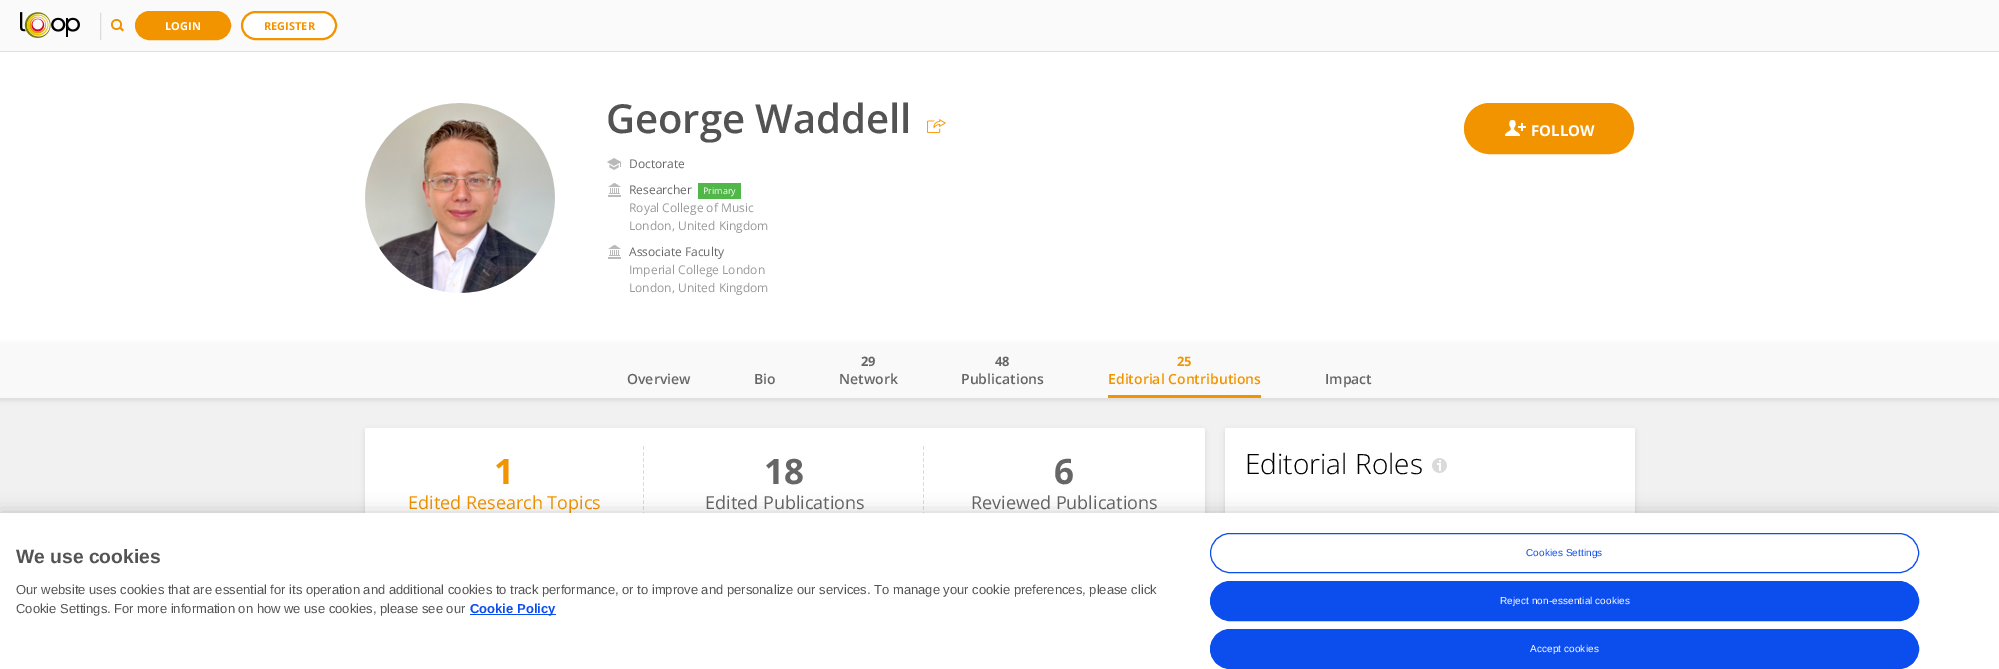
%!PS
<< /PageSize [1999 669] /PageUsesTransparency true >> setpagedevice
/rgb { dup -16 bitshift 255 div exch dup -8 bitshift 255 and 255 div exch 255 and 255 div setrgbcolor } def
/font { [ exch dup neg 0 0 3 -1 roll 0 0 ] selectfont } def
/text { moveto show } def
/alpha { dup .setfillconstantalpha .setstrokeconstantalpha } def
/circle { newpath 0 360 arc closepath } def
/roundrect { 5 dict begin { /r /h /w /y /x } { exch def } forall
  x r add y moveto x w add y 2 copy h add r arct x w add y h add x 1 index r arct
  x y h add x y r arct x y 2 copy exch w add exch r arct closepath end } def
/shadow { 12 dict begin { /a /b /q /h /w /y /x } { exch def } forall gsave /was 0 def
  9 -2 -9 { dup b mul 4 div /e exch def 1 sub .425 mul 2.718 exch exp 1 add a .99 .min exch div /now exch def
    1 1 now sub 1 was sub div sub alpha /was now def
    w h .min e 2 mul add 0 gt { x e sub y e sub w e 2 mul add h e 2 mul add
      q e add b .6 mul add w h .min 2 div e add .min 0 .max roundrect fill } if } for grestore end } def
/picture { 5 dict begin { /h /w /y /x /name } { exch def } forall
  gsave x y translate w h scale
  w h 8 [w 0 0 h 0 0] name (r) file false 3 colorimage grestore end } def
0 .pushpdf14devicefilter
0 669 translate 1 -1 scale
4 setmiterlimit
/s1 { /OpenSans-Bold 11 font 16#FFFFFF rgb } def
/s2 { /OpenSans-Bold 11 font 16#F29400 rgb } def
/s3 { /OpenSans-SemiBold 40 font 16#535353 rgb } def
/s4 { /OpenSans-Regular 12 font 16#666666 rgb } def
/s5 { /OpenSans-Regular 9 font 16#FFFFFF rgb } def
/s6 { /OpenSans-Regular 12 font 16#999999 rgb } def
/s7 { /OpenSans-Bold 15 font 16#FFFFFF rgb } def
/s8 { /OpenSans-SemiBold 14 font 16#666666 rgb } def
/s9 { /OpenSans-Bold 13 font 16#666666 rgb } def
/s10 { /OpenSans-Bold 13 font 16#F29400 rgb } def
/s11 { /OpenSans-SemiBold 14 font 16#F29400 rgb } def
/s12 { /OpenSans-Bold 35 font 16#F29400 rgb } def
/s13 { /OpenSans-Regular 18 font 16#F29400 rgb } def
/s14 { /OpenSans-Bold 35 font 16#666666 rgb } def
/s15 { /OpenSans-Regular 18 font 16#666666 rgb } def
/s16 { /OpenSans-Light 28 font 16#000000 rgb } def
/s17 { /LiberationSans-Bold 19.25 font 16#535353 rgb } def
/s18 { /LiberationSans-Regular 13 font 16#535353 rgb } def
/s19 { /LiberationSans-Bold 13 font 16#0C4DED rgb } def
16#F1F1F1 rgb
0 0 1999 669 rectfill
16#FAFAFA rgb
0 0 1999 51 rectfill
16#E0E0E0 rgb
0 51 1999 1 rectfill
(pic1.raw) 20 12 60 26 picture
16#DCDCDC rgb
101 40 moveto 100.5 39 lineto 100.5 14 lineto 101 13 lineto stroke
16#F29400 rgb
116.5 24.5 5.5 circle fill
16#F9F9F9 rgb
116.5 24.5 3.5 circle fill
16#F29400 rgb
120.5 26.5 moveto 124 30 lineto 122.5 31.5 lineto 119 28 lineto closepath fill
136 12 94 27 13.5 roundrect gsave fill grestore
2 setlinewidth
stroke
s1
(LOGIN) 165 30 text
242 12 94 27 13.5 roundrect gsave fill grestore
16#F29400 rgb
stroke
(REGISTER) 264 30 text
16#FFFFFF rgb
0 52 1999 291 rectfill
(pic2.raw) 365 103 190 190 picture
s3
(George Waddell) 606 133 text
(pic3.raw) 927 119 19 14 picture
(pic4.raw) 607 158 14 12 picture
s4
(Doctorate) 629 168 text
(pic5.raw) 608 183 13 14 picture
(Researcher) 629 194 text
16#51B749 rgb
698 183 43 16 rectfill
s5
(Primary) 703 194 text
s6
(Royal College of Music) 629 212 text
(London, United Kingdom) 629 230 text
(pic5.raw) 608 245 13 14 picture
s4
(Associate Faculty) 629 256 text
s6
(Imperial College London) 629 274 text
(London, United Kingdom) 629 292 text
16#F29400 rgb
1465.5 104.5 167 48 24 roundrect gsave fill grestore
3 setlinewidth
stroke
(pic6.raw) 1505 120 21 16 picture
s7
(FOLLOW) 1531 136 text
16#000000 rgb
0 345 1999 55 0 2.5 0.1 shadow
16#F9F9F9 rgb
0 343 1999 55 rectfill
s8
(Overview) 627 384 text
(Bio) 754 384 text
s9
(29) 861 366 text
s8
(Network) 839 384 text
s9
(48) 995 366 text
s8
(Publications) 961 384 text
16#F29400 rgb
1108 395 153 3 rectfill
s10
(25) 1177 366 text
s11
(Editorial Contributions) 1108 384 text
s8
(Impact) 1325 384 text
16#000000 rgb
365 430 840 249 2 2.5 0.1 shadow
16#FFFFFF rgb
365 428 840 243 2 roundrect fill
(pic7.raw) 643 446 1 67 picture
s12
(1) 494 484 text
s13
(Edited Research Topics) 408 509 text
(pic7.raw) 923 446 1 67 picture
s14
(18) 764 484 text
s15
(Edited Publications) 705 509 text
s14
(6) 1054 484 text
s15
(Reviewed Publications) 971 509 text
16#000000 rgb
1225 430 410 206 2 2.5 0.1 shadow
16#FFFFFF rgb
1225 428 410 206 2 roundrect fill
s16
(Editorial Roles) 1245 474 text
(pic8.raw) 1432 458 15 15 picture
0 513 1999 156 0 9 0.2 shadow
16#FFFFFF rgb
0 513 1999 156 rectfill
s17
(We use cookies) 16 563 text
s18
(Our website uses cookies that are essential for its operation and additional cookies to track performance, or to improve and personalize our services. To manage your cookie preferences, please click) 16 594 text
(Cookie Settings. For more information on how we use cookies, please see our) 16 613 text
16#0C4DED rgb
470 614 86 1 rectfill
s19
(Cookie Policy) 470 613 text
1 setlinewidth
1210.5 533.5 708 39 19.5 roundrect stroke
/LiberationSans-Regular 10 font
1526 556 moveto 0.1 0 (Cookies Settings) ashow
1210.5 581.5 708 39 19.5 roundrect gsave fill grestore
stroke
16#FFFFFF rgb
1500 604 moveto 0.1 0 (Reject non-essential cookies) ashow
16#0C4DED rgb
1210.5 629.5 708 39 19.5 roundrect gsave fill grestore
stroke
16#FFFFFF rgb
1530 652 moveto 0.1 0 (Accept cookies) ashow
.poppdf14devicefilter showpage
